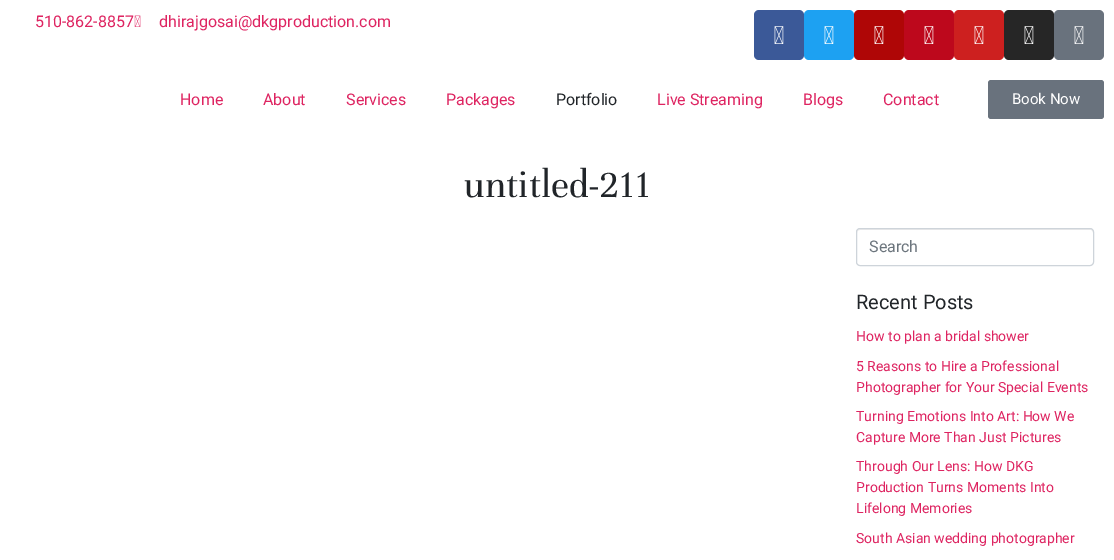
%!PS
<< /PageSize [1114 560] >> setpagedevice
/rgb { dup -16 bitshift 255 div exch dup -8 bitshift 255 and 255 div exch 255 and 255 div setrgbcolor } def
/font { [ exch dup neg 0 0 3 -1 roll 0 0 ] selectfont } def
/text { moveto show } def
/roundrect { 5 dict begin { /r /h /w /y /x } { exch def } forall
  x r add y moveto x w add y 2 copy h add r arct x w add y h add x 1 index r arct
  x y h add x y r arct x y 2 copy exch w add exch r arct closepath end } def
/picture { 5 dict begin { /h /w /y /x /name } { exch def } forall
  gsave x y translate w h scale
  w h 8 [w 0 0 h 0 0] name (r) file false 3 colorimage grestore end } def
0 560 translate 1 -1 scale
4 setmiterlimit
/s1 { /Roboto-Regular 16 font 16#DE2461 rgb } def
/s2 { /Roboto-Regular 16 font 16#212529 rgb } def
/s3 { /Roboto-Regular 15 font 16#FFFFFF rgb } def
/s4 { /Unna-Regular 40 font 16#212529 rgb } def
/s5 { /Roboto-Regular 16 font 16#6C757D rgb } def
/s6 { /Roboto-Regular 20 font 16#212529 rgb } def
/s7 { /Roboto-Regular 14 font 16#DE2461 rgb } def
16#FFFFFF rgb
0 0 1114 560 rectfill
s1
(510-862-8857) 35 27 text
(pic1.raw) 134 15 7 12 picture
(dhirajgosai@dkgproduction.com) 159 27 text
16#3B5998 rgb
754 10 50 50 5 roundrect fill
(pic2.raw) 774 26 10 18 picture
16#1DA1F2 rgb
804 10 50 50 5 roundrect fill
(pic3.raw) 824 26 10 18 picture
16#AF0606 rgb
854 10 50 50 5 roundrect fill
(pic4.raw) 874 26 10 18 picture
16#BD081C rgb
904 10 50 50 5 roundrect fill
(pic5.raw) 924 26 10 18 picture
16#CD201F rgb
954 10 50 50 5 roundrect fill
(pic6.raw) 974 26 10 18 picture
16#262626 rgb
1004 10 50 50 5 roundrect fill
(pic7.raw) 1024 26 10 18 picture
16#69727D rgb
1054 10 50 50 5 roundrect fill
(pic8.raw) 1074 26 10 18 picture
s1
(Home) 180 105 text
(About) 263 105 text
(Services) 346 105 text
(Packages) 446 105 text
s2
(Portfolio) 556 105 text
s1
(Live Streaming) 657 105 text
(Blogs) 803 105 text
(Contact) 883 105 text
16#69727D rgb
988 80 116 39 3 roundrect fill
s3
(Book Now) 1012 104 text
s4
(untitled-211) 464 197 text
16#ECECEC rgb
860 230 moveto 1091 230 lineto 1093 231 lineto 1093 233 lineto 1093 231 1092 229 1090 229 curveto 860 229 lineto 858 229 857 231 857 233 curveto 857 231 858 230 860 230 curveto closepath fill
16#CED4DA rgb
856.5 228.5 237 37 3.5 roundrect stroke
s5
(Search) 869 252 text
s6
(Recent Posts) 856 309 text
s7
(How to plan a bridal shower) 856 341 text
(5 Reasons to Hire a Professional) 856 371 text
(Photographer for Your Special Events) 856 392 text
(Turning Emotions Into Art: How We) 856 421 text
(Capture More Than Just Pictures) 856 442 text
(Through Our Lens: How DKG) 856 471 text
(Production Turns Moments Into) 856 492 text
(Lifelong Memories) 856 513 text
(South Asian wedding photographer) 856 543 text
showpage
